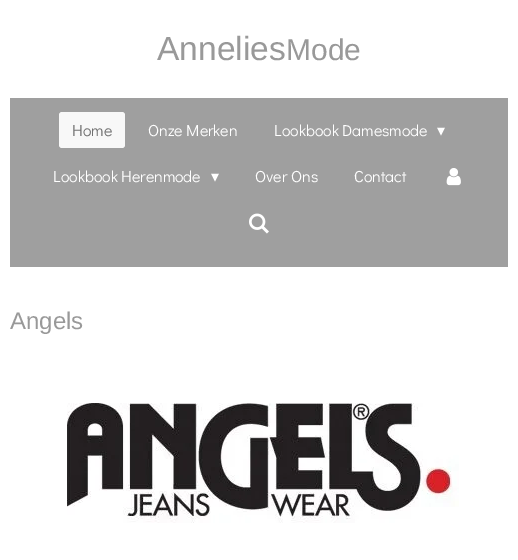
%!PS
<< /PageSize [518 560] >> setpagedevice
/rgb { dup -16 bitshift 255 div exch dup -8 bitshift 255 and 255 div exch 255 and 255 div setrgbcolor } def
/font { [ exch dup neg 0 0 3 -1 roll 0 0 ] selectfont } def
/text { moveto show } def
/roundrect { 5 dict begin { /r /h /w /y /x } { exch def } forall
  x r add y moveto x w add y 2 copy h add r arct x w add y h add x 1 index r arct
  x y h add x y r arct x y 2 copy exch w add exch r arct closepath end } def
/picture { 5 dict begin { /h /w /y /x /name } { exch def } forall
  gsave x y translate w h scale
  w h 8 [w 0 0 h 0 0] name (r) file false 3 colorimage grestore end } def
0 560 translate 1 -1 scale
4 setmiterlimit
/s1 { /Arimo-Regular 33.5 font 16#999999 rgb } def
/s2 { /Arimo-Regular 30 font 16#999999 rgb } def
/s3 { /DidactGothic-Regular 16 font 16#707070 rgb } def
/s4 { /DidactGothic-Regular 16 font 16#FFFFFF rgb } def
/s5 { /DejaVuSans-Regular 16 font 16#FFFFFF rgb } def
/s6 { /Arimo-Regular 24 font 16#999999 rgb } def
16#FFFFFF rgb
0 0 518 560 rectfill
s1
(Annelies) 157 60 text
s2
(Mode) 286 60 text
16#9F9F9F rgb
10 98 498 169 rectfill
16#F8F8F8 rgb
59 112 66 36 3 roundrect fill
s3
(Home) 72 136 text
s4
(Onze Merken) 148 136 text
(Lookbook Damesmode) 274 136 text
s5
(▾) 437 136 text
s4
(Lookbook Herenmode) 53 182 text
s5
(▾) 211 182 text
s4
(Over Ons) 255 182 text
(Contact) 354 182 text
(pic1.raw) 446 168 15 18 picture
(pic2.raw) 249 213 20 21 picture
s6
(Angels) 10 329 text
(pic3.raw) 67 403 392 120 picture
showpage
